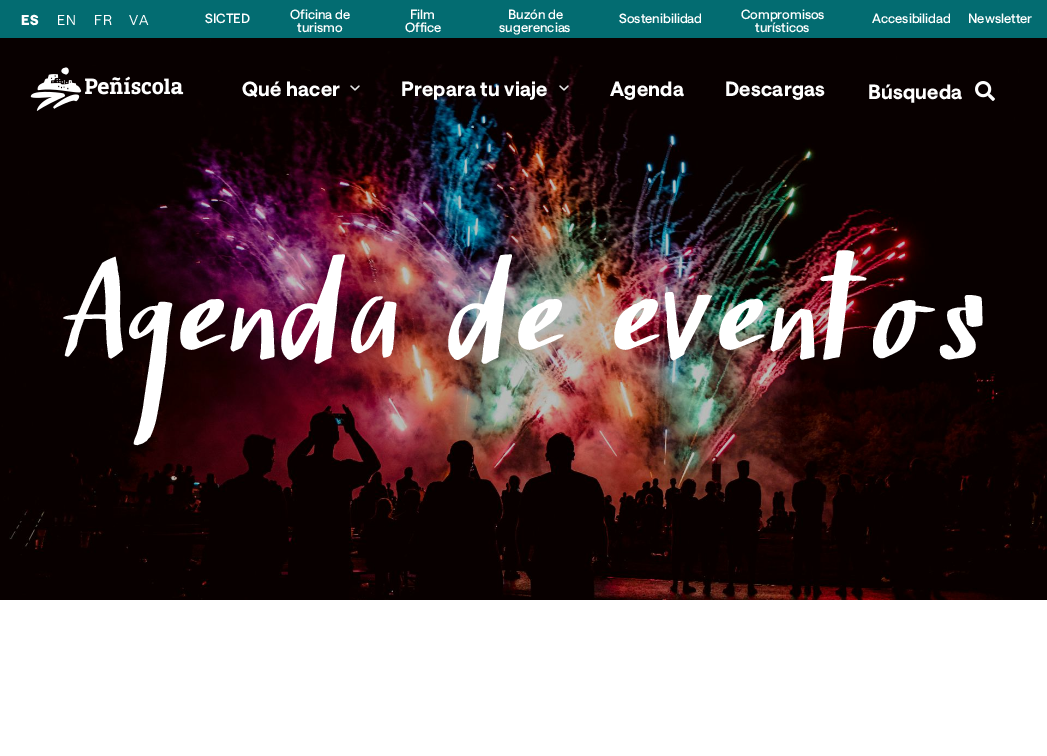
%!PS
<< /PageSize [1047 756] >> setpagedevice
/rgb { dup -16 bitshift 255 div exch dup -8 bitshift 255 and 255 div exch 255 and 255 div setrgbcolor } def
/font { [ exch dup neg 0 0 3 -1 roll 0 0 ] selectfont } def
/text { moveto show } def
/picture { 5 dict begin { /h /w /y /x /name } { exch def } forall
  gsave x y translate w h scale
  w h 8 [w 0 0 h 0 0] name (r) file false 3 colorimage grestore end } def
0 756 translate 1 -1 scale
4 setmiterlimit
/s1 { /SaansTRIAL-Medium 13 font 16#FFFFFF rgb } def
/s2 { /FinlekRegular-Regular 150 font 16#FFFFFF rgb } def
16#FFFFFF rgb
0 0 1047 756 rectfill
16#036C71 rgb
0 0 1047 38 rectfill
/SaansTRIAL-Black 14 font
16#FFFFFF rgb
21 25 moveto 1 0 (ES) ashow
/SaansTRIAL-Regular 14 font
57 25 moveto 1 0 (EN) ashow
94 25 moveto 1 0 (FR) ashow
129 25 moveto 1 0 (VA) ashow
s1
(SICTED) 205 23 text
(Oficina de) 290 19 text
(turismo) 297 32 text
(Film) 410 19 text
(Office) 405 32 text
(Buzón de) 508 19 text
(sugerencias) 499 32 text
(Sostenibilidad) 619 23 text
(Compromisos) 741 19 text
(turísticos) 755 32 text
(Accesibilidad) 872 23 text
(Newsletter) 968 23 text
(pic5.raw) 0 38 1047 562 picture
(pic1.raw) 30 67 154 44 picture
/SaansTRIAL-Bold 20 font
242 96 moveto 0.25 0 (Qué hacer) ashow
(pic2.raw) 350 85 10 6 picture
401 96 moveto 0.25 0 (Prepara tu viaje) ashow
(pic3.raw) 559 85 10 6 picture
610 96 moveto 0.25 0 (Agenda) ashow
725 96 moveto 0.25 0 (Descargas) ashow
868 99 moveto 0.25 0 (Búsqueda) ashow
(pic4.raw) 975 81 20 20 picture
s2
(Agenda de eventos) 60 360 text
showpage
